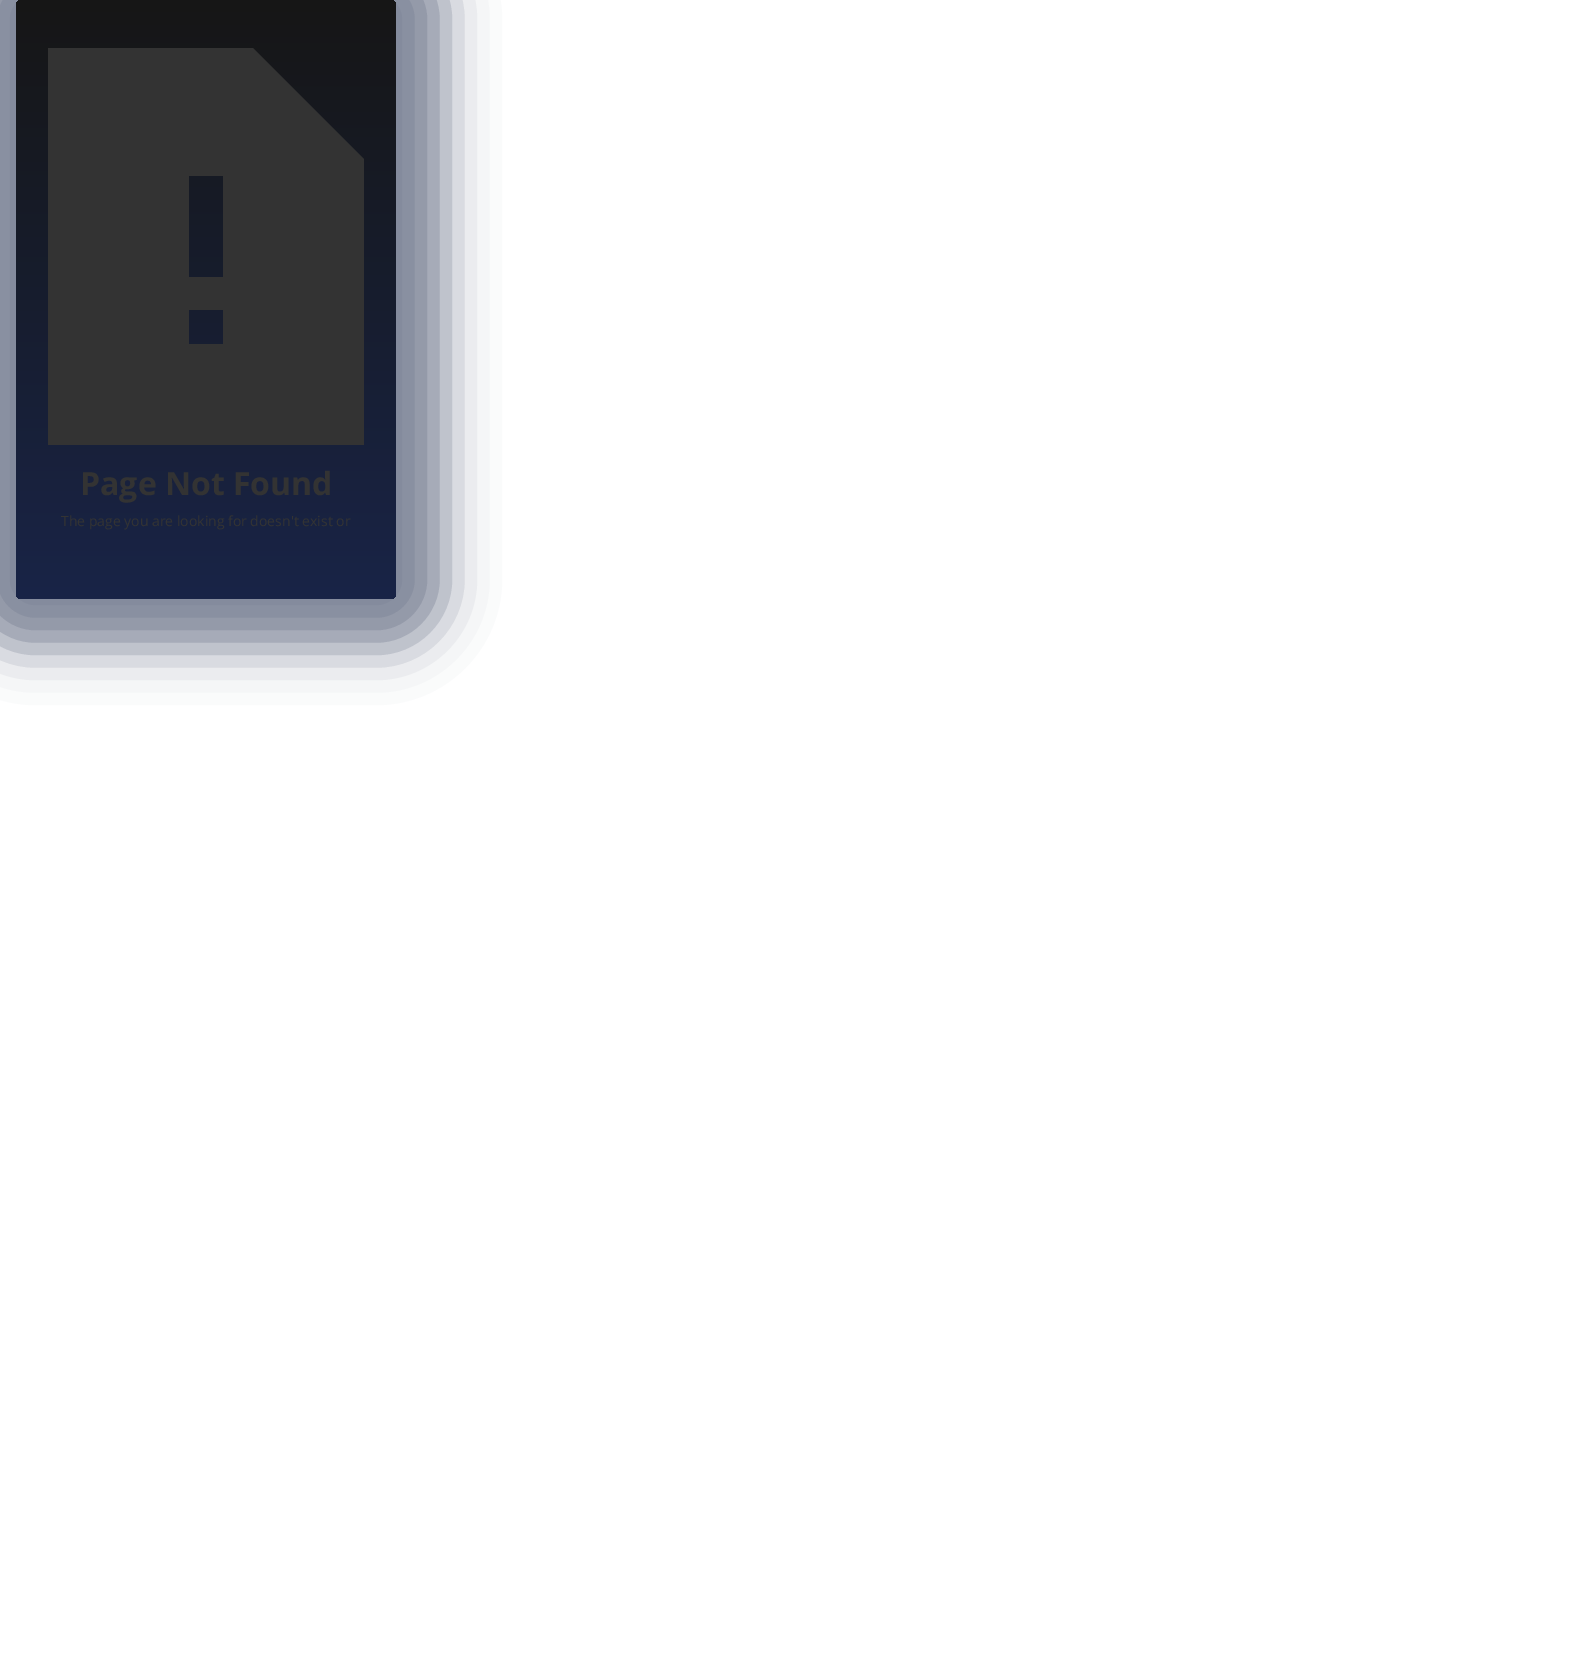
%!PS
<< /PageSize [1569 1673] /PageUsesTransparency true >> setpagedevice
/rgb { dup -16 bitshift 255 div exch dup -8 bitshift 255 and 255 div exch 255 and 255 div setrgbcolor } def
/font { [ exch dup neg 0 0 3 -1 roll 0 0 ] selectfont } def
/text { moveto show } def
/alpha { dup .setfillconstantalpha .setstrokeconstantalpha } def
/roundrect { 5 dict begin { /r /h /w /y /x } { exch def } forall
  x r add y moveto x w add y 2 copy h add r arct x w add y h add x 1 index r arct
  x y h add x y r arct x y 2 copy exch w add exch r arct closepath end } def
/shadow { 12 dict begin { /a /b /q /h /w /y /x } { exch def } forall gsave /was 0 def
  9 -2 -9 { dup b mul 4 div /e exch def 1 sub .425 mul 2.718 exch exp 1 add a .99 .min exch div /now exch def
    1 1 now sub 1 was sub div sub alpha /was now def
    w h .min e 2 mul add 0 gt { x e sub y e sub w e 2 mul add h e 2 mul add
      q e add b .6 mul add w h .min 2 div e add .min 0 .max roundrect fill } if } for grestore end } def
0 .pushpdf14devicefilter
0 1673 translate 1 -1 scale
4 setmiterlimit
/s1 { /OpenSans-Bold 32 font 16#333333 rgb } def
/s2 { /OpenSans-Regular 14 font 16#333333 rgb } def
16#FFFFFF rgb
0 0 1569 1673 rectfill
16#192447 rgb
-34 -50 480 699 55 25 0.55 shadow
gsave 16 0 380 599 5 roundrect clip newpath
<< /ShadingType 2 /ColorSpace /DeviceRGB /Coords [206 0 206 599] /Extend [true true] /Function << /FunctionType 2 /Domain [0 1] /C0 [0.086 0.086 0.086] /C1 [0.098 0.141 0.278] /N 1 >> >> shfill grestore
16#333333 rgb
48 48 moveto 253 48 lineto 364 159 lineto 364 445 lineto 48 445 lineto closepath 189 176 moveto 223 176 lineto 223 277 lineto 189 277 lineto closepath 189 310 moveto 223 310 lineto 223 344 lineto 189 344 lineto closepath eofill
s1
(Page Not Found) 80 495 text
s2
(The page you are looking for doesn't exist or) 61 526 text
.poppdf14devicefilter showpage
